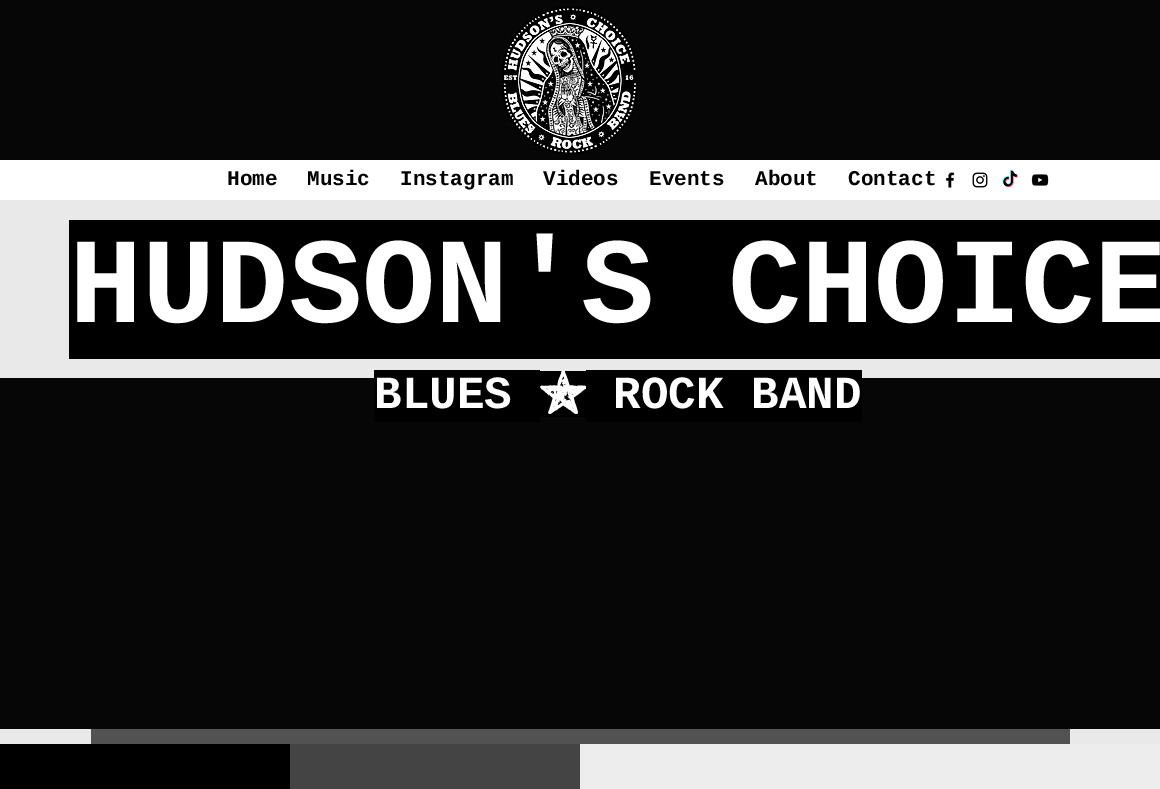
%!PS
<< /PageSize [1160 789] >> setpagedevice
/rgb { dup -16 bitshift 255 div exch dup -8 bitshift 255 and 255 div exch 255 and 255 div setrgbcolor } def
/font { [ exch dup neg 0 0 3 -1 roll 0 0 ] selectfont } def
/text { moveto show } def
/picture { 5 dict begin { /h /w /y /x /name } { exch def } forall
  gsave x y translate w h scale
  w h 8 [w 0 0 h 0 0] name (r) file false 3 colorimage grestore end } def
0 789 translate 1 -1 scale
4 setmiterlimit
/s1 { /LiberationMono-Bold 21 font 16#000000 rgb } def
/s2 { /LiberationMono-Bold 122 font 16#FFFFFF rgb } def
/s3 { /LiberationMono-Bold 46 font 16#FFFFFF rgb } def
/s4 { /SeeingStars-Bold 46 font 16#FFFFFF rgb } def
16#E9E9E9 rgb
0 0 1160 789 rectfill
16#060606 rgb
0 0 1160 160 rectfill
(pic1.raw) 502 6 136 149 picture
16#FFFFFF rgb
0 160 1160 40 rectfill
s1
(Home) 227 185 text
(Music) 307 185 text
(Instagram) 400 185 text
(Videos) 543 185 text
(Events) 649 185 text
(About) 755 185 text
(Contact) 848 185 text
(pic2.raw) 946 172 9 16 picture
(pic3.raw) 972 172 16 16 picture
(pic4.raw) 1002 170 16 18 picture
(pic5.raw) 1031 174 18 12 picture
69 220 1091 139 rectfill
s2
(HUDSON'S CHOICE) 69 322 text
16#060606 rgb
0 378 1160 351 rectfill
16#000000 rgb
374 370 166 52 rectfill
s3
(BLUES) 374 408 text
16#000000 rgb
540 371 46 46 rectfill
s4
(f) 540 408 text
16#000000 rgb
586 370 276 52 rectfill
s3
(ROCK BAND) 613 408 text
16#000000 rgb
0 744 290 45 rectfill
16#444444 rgb
290 744 290 45 rectfill
16#EDEDED rgb
580 744 580 45 rectfill
16#525252 rgb
91 729 979 15 rectfill
showpage
